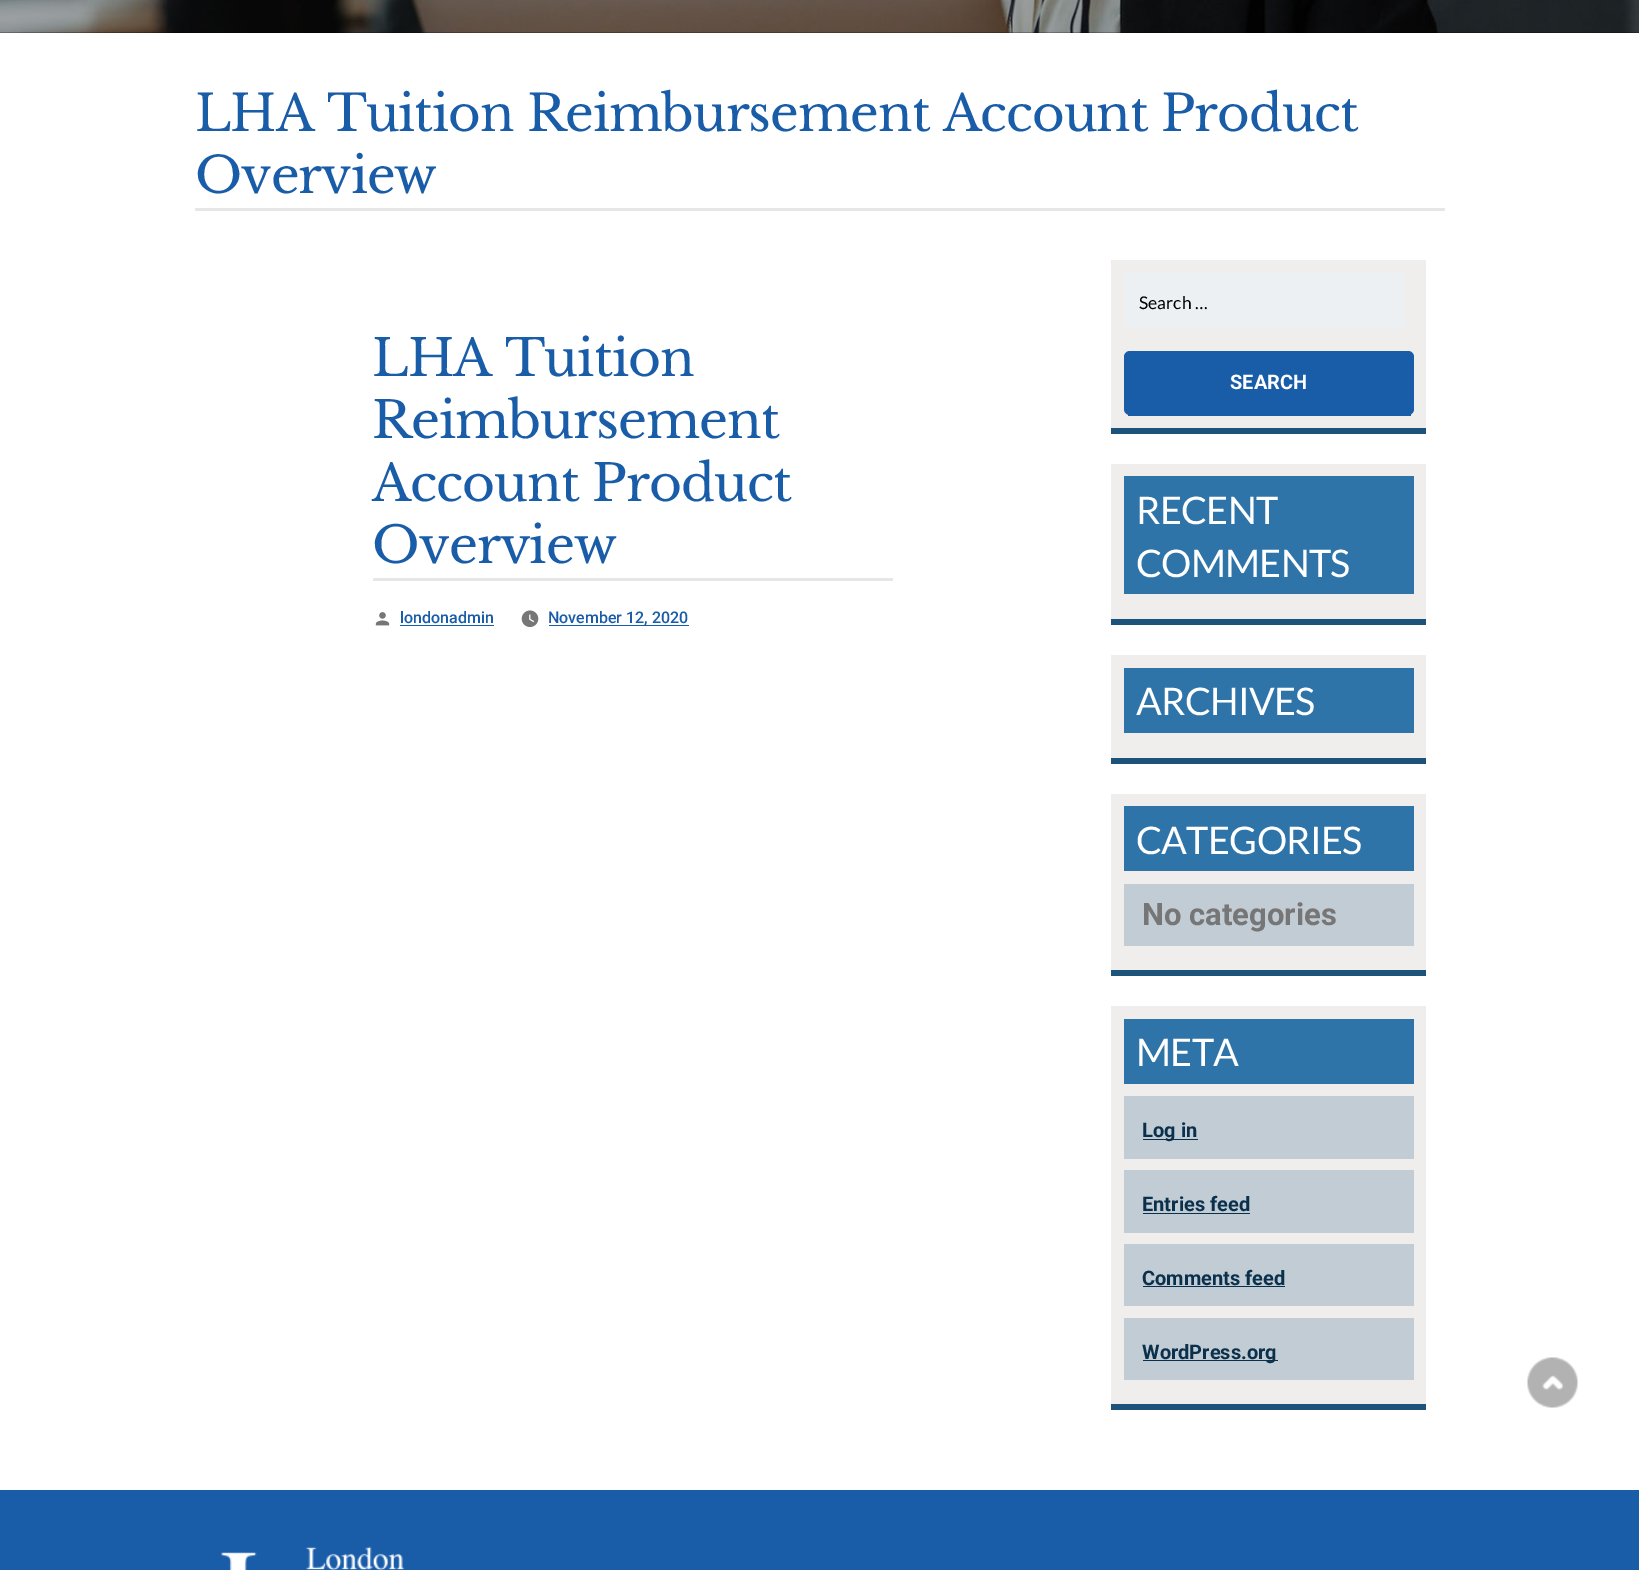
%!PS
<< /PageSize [1639 1570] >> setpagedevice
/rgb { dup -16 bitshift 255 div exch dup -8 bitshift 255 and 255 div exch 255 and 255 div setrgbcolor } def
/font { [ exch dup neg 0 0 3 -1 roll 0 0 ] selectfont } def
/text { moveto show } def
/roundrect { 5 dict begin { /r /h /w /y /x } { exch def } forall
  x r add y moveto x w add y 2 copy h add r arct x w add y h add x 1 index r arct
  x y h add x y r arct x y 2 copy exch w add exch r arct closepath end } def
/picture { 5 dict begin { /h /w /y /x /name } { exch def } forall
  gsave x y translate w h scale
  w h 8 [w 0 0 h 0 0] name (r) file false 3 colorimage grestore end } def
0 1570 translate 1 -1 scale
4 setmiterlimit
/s1 { /Roboto-Medium 16 font 16#195CA8 rgb } def
/s2 { /Lato-Regular 17.5 font 16#000000 rgb } def
/s3 { /Roboto-Bold 20 font 16#FFFFFF rgb } def
/s4 { /Roboto-Bold 31 font 16#767676 rgb } def
/s5 { /Roboto-Bold 20 font 16#0B304C rgb } def
16#FFFFFF rgb
0 0 1639 1570 rectfill
(pic1.raw) 0 0 1639 33 picture
16#E6E6E6 rgb
195 208 1250 3 rectfill
/LibreBaskerville-Regular 50 font
16#195CA8 rgb
195 131 moveto -1 0 (LHA Tuition Reimbursement Account Product) ashow
195 193 moveto -1 0 (Overview) ashow
16#E6E6E6 rgb
373 578 520 3 rectfill
/LibreBaskerville-Regular 50.5 font
16#195CA8 rgb
372 376 moveto -1 0 (LHA Tuition) ashow
372 438 moveto -1 0 (Reimbursement) ashow
372 501 moveto -1 0 (Account Product) ashow
372 563 moveto -1 0 (Overview) ashow
(pic2.raw) 375 612 15 14 picture
s1
(londonadmin) 400 623 text
400 625 94 1 rectfill
(pic3.raw) 521 610 18 18 picture
549 625 140 1 rectfill
(November 12, 2020) 548 623 text
16#F0EDED rgb
1111 260 315 168 rectfill
16#1D527B rgb
1111 428 315 6 rectfill
16#ECF0F3 rgb
1124 273 281 56 rectfill
s2
(Search …) 1139 309 text
16#195CA8 rgb
1124 351 290 64 6 roundrect fill
1128 414 283 2 rectfill
s3
(SEARCH) 1230 389 text
16#F0EDED rgb
1111 464 315 155 rectfill
16#1D527B rgb
1111 619 315 6 rectfill
16#2E74A9 rgb
1124 476 290 118 rectfill
/Lato-Regular 38 font
16#FFFFFF rgb
1136 524 moveto -0.75 0 (RECENT) ashow
1136 577 moveto -0.75 0 (COMMENTS) ashow
16#F0EDED rgb
1111 655 315 103 rectfill
16#1D527B rgb
1111 758 315 6 rectfill
16#2E74A9 rgb
1124 668 290 65 rectfill
16#FFFFFF rgb
1136 715 moveto -0.75 0 (ARCHIVES) ashow
16#F0EDED rgb
1111 794 315 176 rectfill
16#1D527B rgb
1111 970 315 6 rectfill
16#2E74A9 rgb
1124 806 290 65 rectfill
16#FFFFFF rgb
1136 854 moveto -0.75 0 (CATEGORIES) ashow
16#C2CCD4 rgb
1124 884 290 62 rectfill
s4
(No categories) 1142 925 text
16#F0EDED rgb
1111 1006 315 398 rectfill
16#1D527B rgb
1111 1404 315 6 rectfill
16#2E74A9 rgb
1124 1019 290 65 rectfill
/Lato-Regular 38 font
16#FFFFFF rgb
1136 1066 moveto -0.75 0 (META) ashow
16#C2CCD4 rgb
1124 1096 290 63 rectfill
16#0B304C rgb
1143 1139 55 1 rectfill
s5
(Log in) 1142 1137 text
16#C2CCD4 rgb
1124 1170 290 63 rectfill
s5
(Entries feed) 1142 1211 text
1143 1213 107 1 rectfill
16#C2CCD4 rgb
1124 1244 290 62 rectfill
s5
(Comments feed) 1142 1285 text
1143 1286 142 1 rectfill
16#C2CCD4 rgb
1124 1318 290 62 rectfill
16#0B304C rgb
1143 1360 135 1 rectfill
(WordPress.org) 1142 1359 text
(pic4.raw) 1527 1357 51 51 picture
16#195CA8 rgb
0 1490 1639 80 rectfill
(pic5.raw) 221 1546 184 24 picture
showpage
